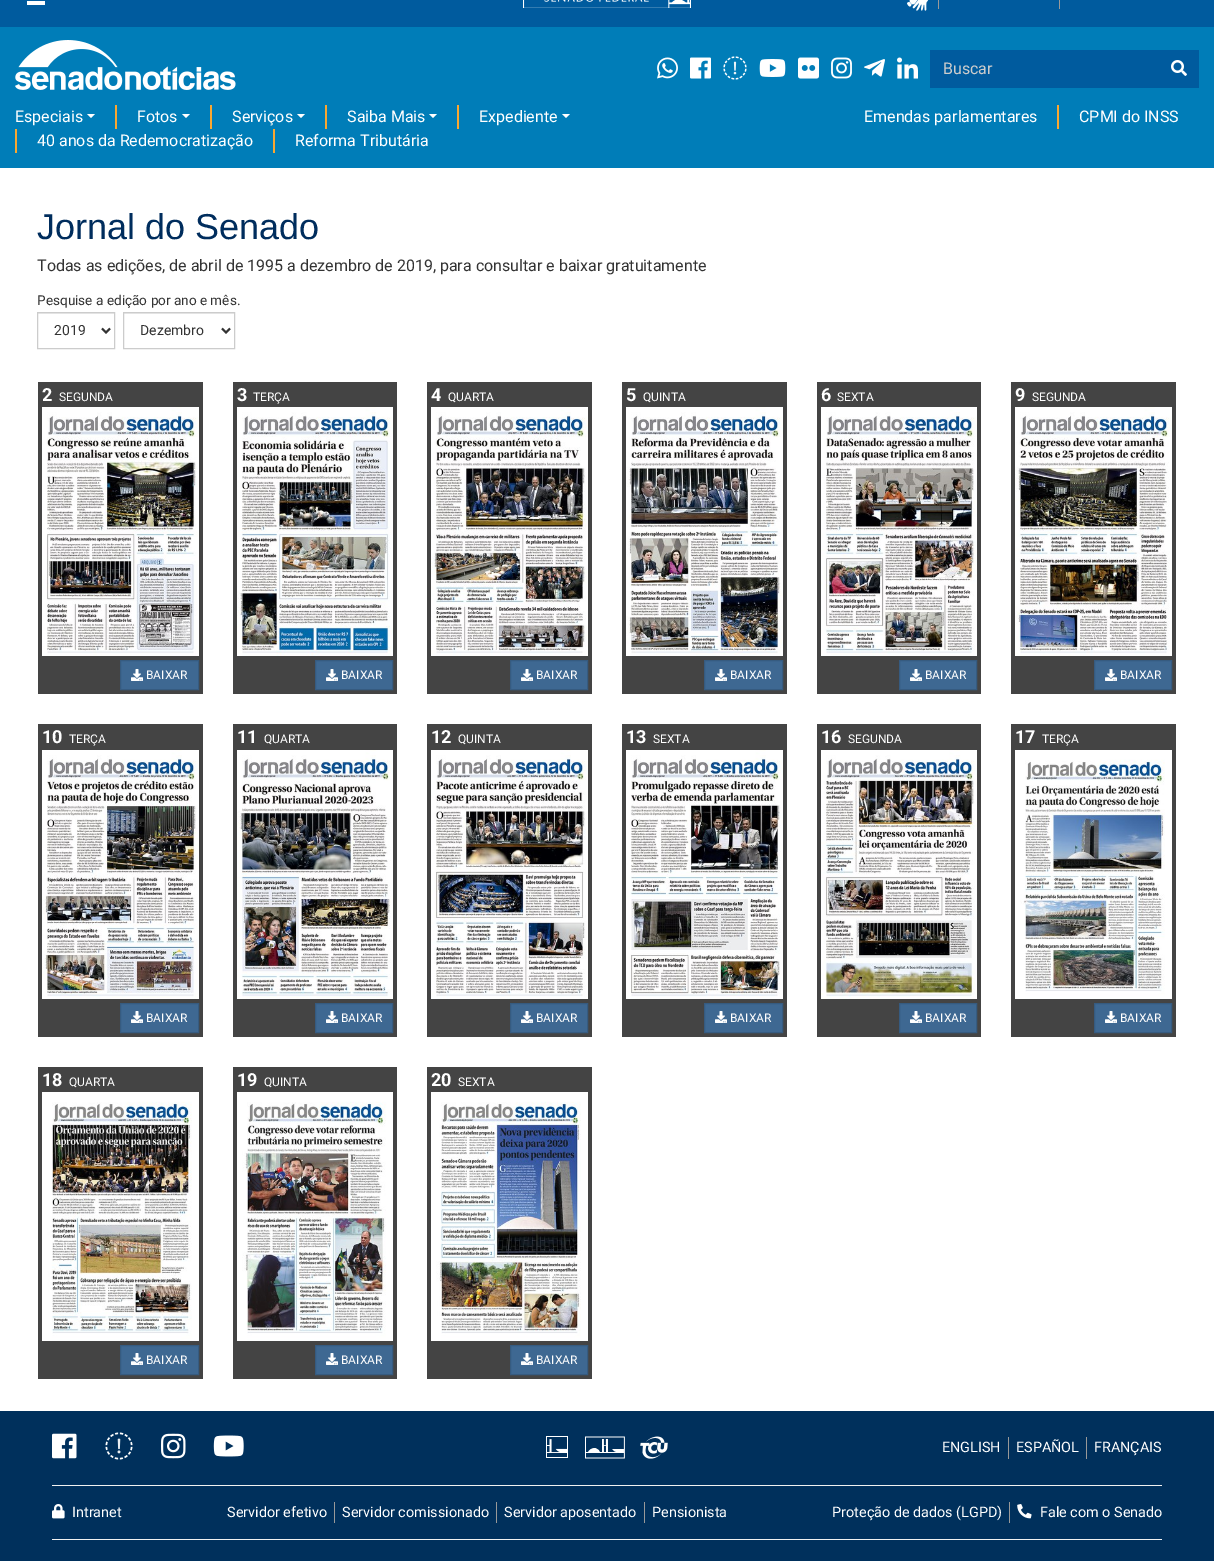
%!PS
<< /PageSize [1214 1561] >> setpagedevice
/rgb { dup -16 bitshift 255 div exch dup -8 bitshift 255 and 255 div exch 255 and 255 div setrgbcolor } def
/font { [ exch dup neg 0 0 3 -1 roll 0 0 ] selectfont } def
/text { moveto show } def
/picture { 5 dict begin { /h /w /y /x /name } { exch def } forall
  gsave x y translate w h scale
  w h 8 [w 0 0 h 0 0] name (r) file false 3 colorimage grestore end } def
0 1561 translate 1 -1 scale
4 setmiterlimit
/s1 { /Roboto-Regular 16 font 16#CCCCCC rgb } def
/s2 { /Roboto-Regular 16 font 16#FFFFFF rgb } def
/s3 { /LiberationSans-Regular 36 font 16#002D5D rgb } def
/s4 { /Roboto-Regular 16 font 16#333333 rgb } def
/s5 { /Roboto-Regular 13.6 font 16#333333 rgb } def
/s6 { /Roboto-Regular 14 font 16#333333 rgb } def
/s7 { /Roboto-Bold 18 font 16#FFFFFF rgb } def
/s8 { /Roboto-Regular 12 font 16#FFFFFF rgb } def
/s9 { /Roboto-Regular 14.4 font 16#FFFFFF rgb } def
16#FFFFFF rgb
0 0 1214 1561 rectfill
16#005B9E rgb
0 0 1214 27 rectfill
16#FFFFFF rgb
27 1 18 4 rectfill
(pic1.raw) 523 0 168 8 picture
(pic2.raw) 907 0 22 11 picture
16#999999 rgb
938 0 1 9 rectfill
1059 0 1 9 rectfill
16#007DB8 rgb
0 27 1214 141 rectfill
(pic3.raw) 15 40 221 50 picture
(pic4.raw) 657 57 21 22 picture
(pic5.raw) 690 57 21 22 picture
(pic6.raw) 723 56 24 24 picture
(pic7.raw) 759 59 27 18 picture
(pic8.raw) 798 57 21 22 picture
(pic9.raw) 831 57 21 22 picture
(pic10.raw) 864 59 21 18 picture
(pic11.raw) 897 57 21 22 picture
16#005B9E rgb
930 50 269 38 rectfill
s1
(Buscar) 943 74 text
(pic12.raw) 1171 60 16 16 picture
s2
(Especiais) 15 122 text
87 114 moveto 95 114 lineto 91 118 lineto closepath fill
16#FAA731 rgb
115 105 2 24 rectfill
s2
(Fotos) 137 122 text
182 114 moveto 190 114 lineto 186 118 lineto closepath fill
16#FAA731 rgb
210 105 2 24 rectfill
s2
(Serviços) 232 122 text
297 114 moveto 305 114 lineto 301 118 lineto closepath fill
16#FAA731 rgb
325 105 2 24 rectfill
s2
(Saiba Mais) 347 122 text
429 114 moveto 437 114 lineto 433 118 lineto closepath fill
16#FAA731 rgb
457 105 2 24 rectfill
s2
(Expediente) 479 122 text
562 114 moveto 570 114 lineto 566 118 lineto closepath fill
(Emendas parlamentares) 864 122 text
16#FAA731 rgb
1057 105 2 24 rectfill
s2
(CPMI do INSS) 1079 122 text
16#FAA731 rgb
15 129 2 24 rectfill
s2
(40 anos da Redemocratização) 37 146 text
16#FAA731 rgb
273 129 2 24 rectfill
s2
(Reforma Tributária) 295 146 text
s3
(Jornal do Senado) 37 239 text
s4
(Todas as edições, de abril de 1995 a dezembro de 2019, para consultar e baixar gratuitamente) 37 271 text
s5
(Pesquise a edição por ano e mês.) 37 305 text
16#ECECEC rgb
38 313 76 1 rectfill
16#CCCCCC rgb
37.5 312.5 77 36 rectstroke
16#333333 rgb
2 setlinewidth
102 328.5 moveto 106 332.5 lineto 110 328.5 lineto stroke
s6
(2019) 54 335 text
16#ECECEC rgb
124 313 110 1 rectfill
16#CCCCCC rgb
1 setlinewidth
123.5 312.5 111 36 rectstroke
16#333333 rgb
2 setlinewidth
222 328.5 moveto 226 332.5 lineto 230 328.5 lineto stroke
(Dezembro) 140 335 text
16#444444 rgb
38 382 165 312 rectfill
s7
(2) 42 401 text
s8
(SEGUNDA) 59 401 text
(pic13.raw) 42 407 157 249 picture
16#3E6892 rgb
120.5 660.5 moveto 198.5 660.5 lineto 198.5 689.5 lineto 120.5 689.5 lineto closepath gsave fill grestore
16#365B80 rgb
1 setlinewidth
stroke
(pic14.raw) 131 669 12 12 picture
s8
(BAIXAR) 146 679 text
16#444444 rgb
233 382 164 312 rectfill
s7
(3) 237 401 text
s8
(TERÇA) 253 401 text
(pic15.raw) 237 407 156 249 picture
16#3E6892 rgb
315.5 660.5 moveto 392.5 660.5 lineto 392.5 689.5 lineto 315.5 689.5 lineto closepath gsave fill grestore
16#365B80 rgb
stroke
(pic14.raw) 326 669 12 12 picture
s8
(BAIXAR) 341 679 text
16#444444 rgb
427 382 165 312 rectfill
s7
(4) 431 401 text
s8
(QUARTA) 448 401 text
(pic16.raw) 431 407 157 249 picture
16#3E6892 rgb
510.5 660.5 moveto 587.5 660.5 lineto 587.5 689.5 lineto 510.5 689.5 lineto closepath gsave fill grestore
16#365B80 rgb
stroke
(pic14.raw) 521 669 12 12 picture
s8
(BAIXAR) 536 679 text
16#444444 rgb
622 382 165 312 rectfill
s7
(5) 626 401 text
s8
(QUINTA) 643 401 text
(pic17.raw) 626 407 157 249 picture
16#3E6892 rgb
704.5 660.5 moveto 782.5 660.5 lineto 782.5 689.5 lineto 704.5 689.5 lineto closepath gsave fill grestore
16#365B80 rgb
stroke
(pic14.raw) 715 669 12 12 picture
s8
(BAIXAR) 730 679 text
16#444444 rgb
817 382 164 312 rectfill
s7
(6) 821 401 text
s8
(SEXTA) 837 401 text
(pic18.raw) 821 407 156 249 picture
16#3E6892 rgb
899.5 660.5 moveto 976.5 660.5 lineto 976.5 689.5 lineto 899.5 689.5 lineto closepath gsave fill grestore
16#365B80 rgb
stroke
(pic14.raw) 910 669 12 12 picture
s8
(BAIXAR) 925 679 text
16#444444 rgb
1011 382 165 312 rectfill
s7
(9) 1015 401 text
s8
(SEGUNDA) 1032 401 text
(pic19.raw) 1015 407 157 249 picture
16#3E6892 rgb
1094.5 660.5 moveto 1171.5 660.5 lineto 1171.5 689.5 lineto 1094.5 689.5 lineto closepath gsave fill grestore
16#365B80 rgb
stroke
(pic14.raw) 1105 669 12 12 picture
s8
(BAIXAR) 1120 679 text
16#444444 rgb
38 724 165 313 rectfill
s7
(10) 42 743 text
s8
(TERÇA) 69 743 text
(pic20.raw) 42 750 157 249 picture
16#3E6892 rgb
120.5 1003.5 moveto 198.5 1003.5 lineto 198.5 1032.5 lineto 120.5 1032.5 lineto closepath gsave fill grestore
16#365B80 rgb
stroke
(pic14.raw) 131 1011 12 12 picture
s8
(BAIXAR) 146 1022 text
16#444444 rgb
233 724 164 313 rectfill
s7
(11) 237 743 text
s8
(QUARTA) 264 743 text
(pic21.raw) 237 750 156 249 picture
16#3E6892 rgb
315.5 1003.5 moveto 392.5 1003.5 lineto 392.5 1032.5 lineto 315.5 1032.5 lineto closepath gsave fill grestore
16#365B80 rgb
stroke
(pic14.raw) 326 1011 12 12 picture
s8
(BAIXAR) 341 1022 text
16#444444 rgb
427 724 165 313 rectfill
s7
(12) 431 743 text
s8
(QUINTA) 458 743 text
(pic22.raw) 431 750 157 249 picture
16#3E6892 rgb
510.5 1003.5 moveto 587.5 1003.5 lineto 587.5 1032.5 lineto 510.5 1032.5 lineto closepath gsave fill grestore
16#365B80 rgb
stroke
(pic14.raw) 521 1011 12 12 picture
s8
(BAIXAR) 536 1022 text
16#444444 rgb
622 724 165 313 rectfill
s7
(13) 626 743 text
s8
(SEXTA) 653 743 text
(pic23.raw) 626 750 157 249 picture
16#3E6892 rgb
704.5 1003.5 moveto 782.5 1003.5 lineto 782.5 1032.5 lineto 704.5 1032.5 lineto closepath gsave fill grestore
16#365B80 rgb
stroke
(pic14.raw) 715 1011 12 12 picture
s8
(BAIXAR) 730 1022 text
16#444444 rgb
817 724 164 313 rectfill
s7
(16) 821 743 text
s8
(SEGUNDA) 848 743 text
(pic24.raw) 821 750 156 249 picture
16#3E6892 rgb
899.5 1003.5 moveto 976.5 1003.5 lineto 976.5 1032.5 lineto 899.5 1032.5 lineto closepath gsave fill grestore
16#365B80 rgb
stroke
(pic14.raw) 910 1011 12 12 picture
s8
(BAIXAR) 925 1022 text
16#444444 rgb
1011 724 165 313 rectfill
s7
(17) 1015 743 text
s8
(TERÇA) 1042 743 text
(pic25.raw) 1015 750 157 249 picture
16#3E6892 rgb
1094.5 1003.5 moveto 1171.5 1003.5 lineto 1171.5 1032.5 lineto 1094.5 1032.5 lineto closepath gsave fill grestore
16#365B80 rgb
stroke
(pic14.raw) 1105 1011 12 12 picture
s8
(BAIXAR) 1120 1022 text
16#444444 rgb
38 1067 165 312 rectfill
s7
(18) 42 1086 text
s8
(QUARTA) 69 1086 text
(pic26.raw) 42 1092 157 249 picture
16#3E6892 rgb
120.5 1345.5 moveto 198.5 1345.5 lineto 198.5 1374.5 lineto 120.5 1374.5 lineto closepath gsave fill grestore
16#365B80 rgb
stroke
(pic14.raw) 131 1353 12 12 picture
s8
(BAIXAR) 146 1364 text
16#444444 rgb
233 1067 164 312 rectfill
s7
(19) 237 1086 text
s8
(QUINTA) 264 1086 text
(pic27.raw) 237 1092 156 249 picture
16#3E6892 rgb
315.5 1345.5 moveto 392.5 1345.5 lineto 392.5 1374.5 lineto 315.5 1374.5 lineto closepath gsave fill grestore
16#365B80 rgb
stroke
(pic14.raw) 326 1353 12 12 picture
s8
(BAIXAR) 341 1364 text
16#444444 rgb
427 1067 165 312 rectfill
s7
(20) 431 1086 text
s8
(SEXTA) 458 1086 text
(pic28.raw) 431 1092 157 249 picture
16#3E6892 rgb
510.5 1345.5 moveto 587.5 1345.5 lineto 587.5 1374.5 lineto 510.5 1374.5 lineto closepath gsave fill grestore
16#365B80 rgb
stroke
(pic14.raw) 521 1353 12 12 picture
s8
(BAIXAR) 536 1364 text
16#00305C rgb
0 1411 1214 150 rectfill
(pic29.raw) 52 1433 25 26 picture
(pic30.raw) 105 1432 28 28 picture
(pic31.raw) 161 1433 25 26 picture
(pic32.raw) 213 1435 31 22 picture
(pic33.raw) 546 1436 22 22 picture
(pic34.raw) 585 1436 40 23 picture
(pic35.raw) 640 1436 28 23 picture
s9
(ENGLISH) 942 1452 text
16#999999 rgb
1008 1437 1 22 rectfill
s9
(ESPAÑOL) 1016 1452 text
16#999999 rgb
1086 1437 1 22 rectfill
s9
(FRANÇAIS) 1094 1452 text
16#F1F1F1 rgb
52 1485 1110 1 rectfill
(pic36.raw) 52 1504 13 15 picture
s9
(Intranet) 72 1517 text
(Servidor efetivo) 227 1517 text
16#999999 rgb
334 1502 1 21 rectfill
s9
(Servidor comissionado) 342 1517 text
16#999999 rgb
496 1502 1 21 rectfill
s9
(Servidor aposentado) 504 1517 text
16#999999 rgb
644 1502 1 21 rectfill
s9
(Pensionista) 652 1517 text
(Proteção de dados \(LGPD\)) 832 1517 text
16#999999 rgb
1009 1502 1 21 rectfill
(pic37.raw) 1017 1504 15 15 picture
s9
(Fale com o Senado) 1040 1517 text
16#F1F1F1 rgb
52 1539 1110 1 rectfill
showpage
